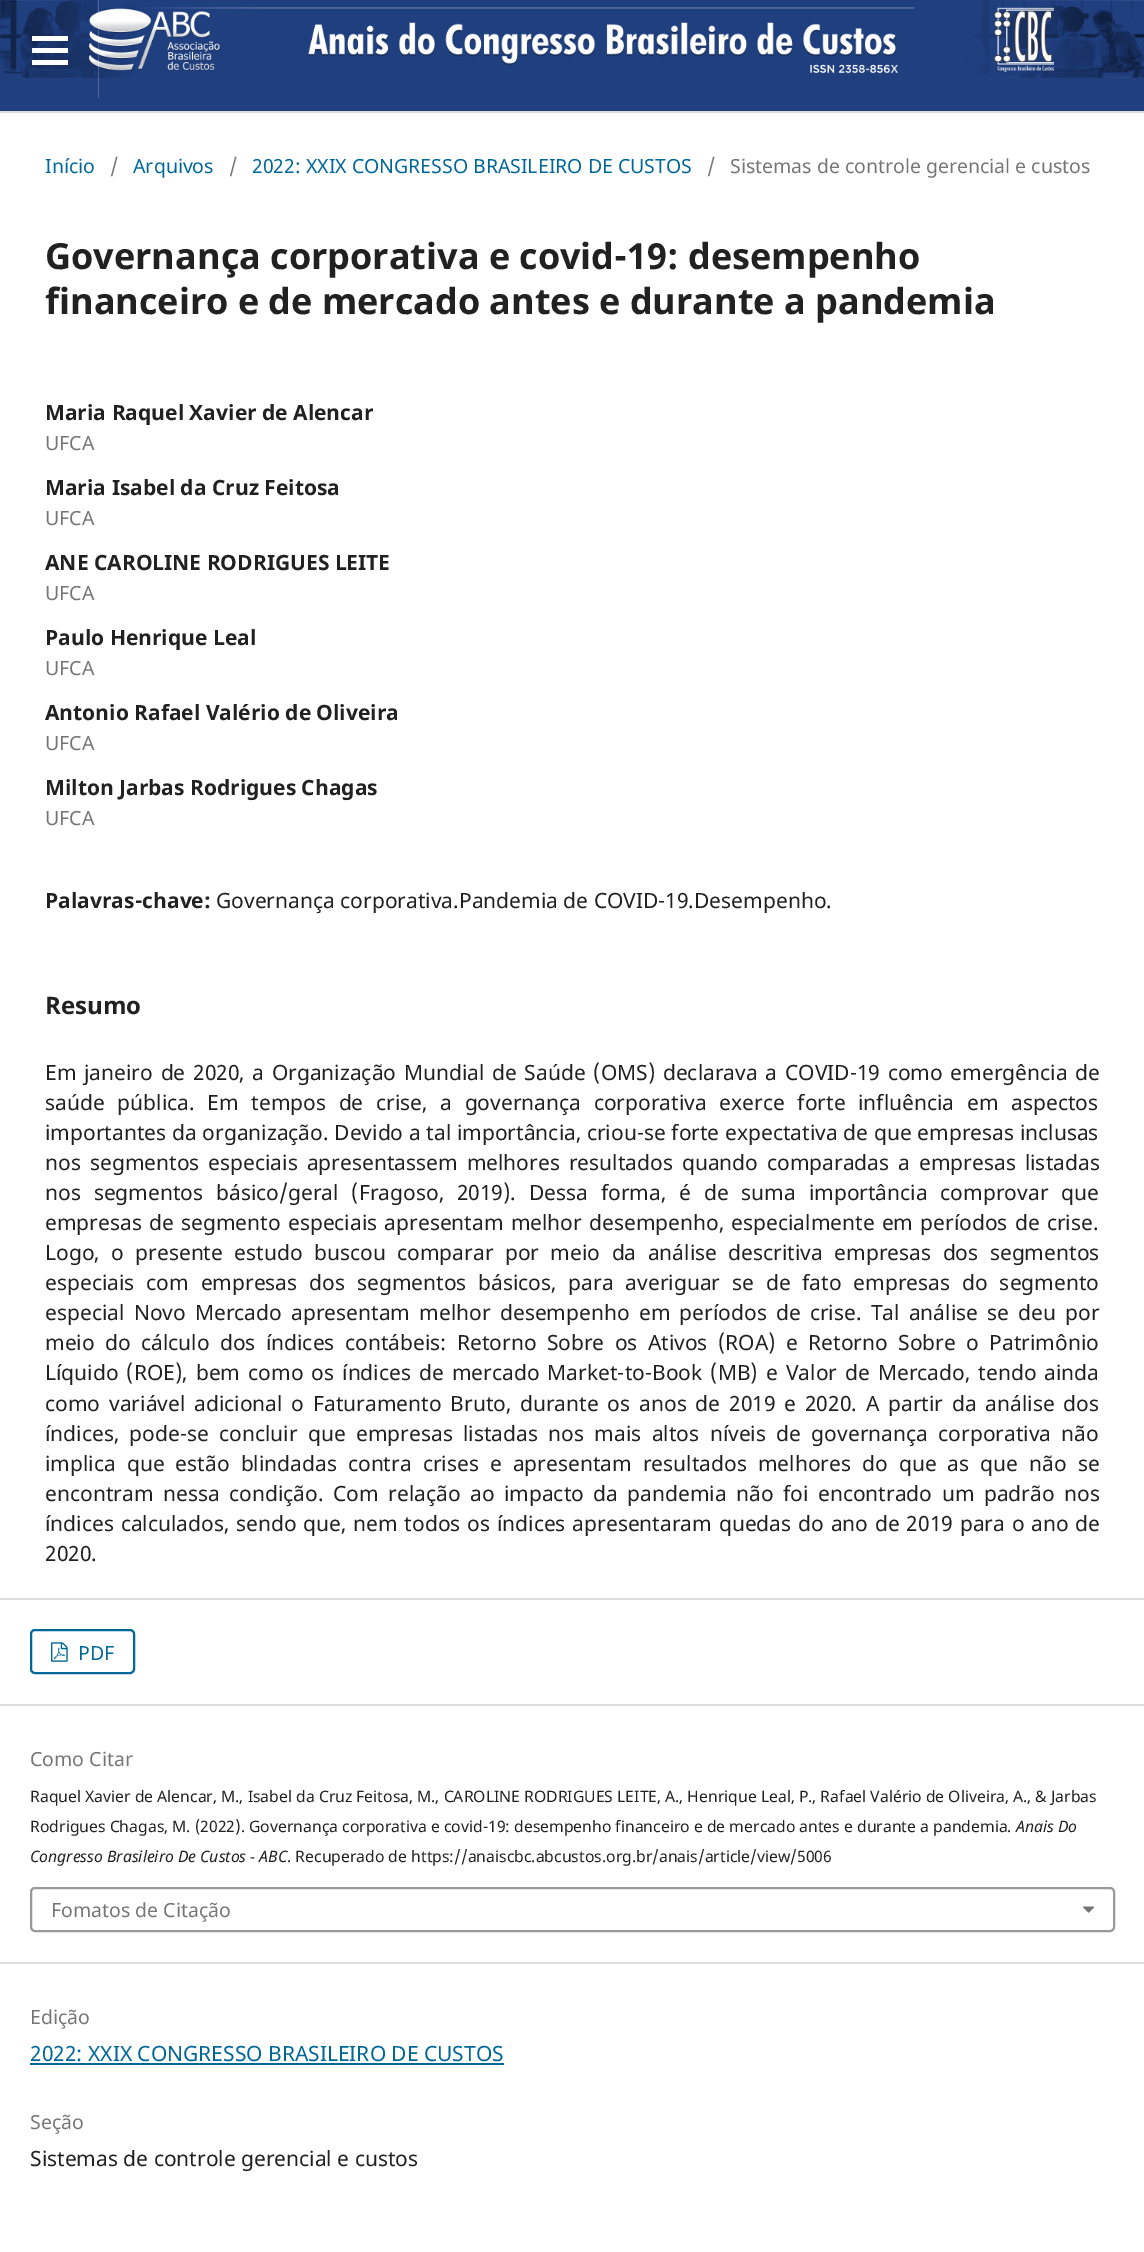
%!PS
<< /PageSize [1144 2252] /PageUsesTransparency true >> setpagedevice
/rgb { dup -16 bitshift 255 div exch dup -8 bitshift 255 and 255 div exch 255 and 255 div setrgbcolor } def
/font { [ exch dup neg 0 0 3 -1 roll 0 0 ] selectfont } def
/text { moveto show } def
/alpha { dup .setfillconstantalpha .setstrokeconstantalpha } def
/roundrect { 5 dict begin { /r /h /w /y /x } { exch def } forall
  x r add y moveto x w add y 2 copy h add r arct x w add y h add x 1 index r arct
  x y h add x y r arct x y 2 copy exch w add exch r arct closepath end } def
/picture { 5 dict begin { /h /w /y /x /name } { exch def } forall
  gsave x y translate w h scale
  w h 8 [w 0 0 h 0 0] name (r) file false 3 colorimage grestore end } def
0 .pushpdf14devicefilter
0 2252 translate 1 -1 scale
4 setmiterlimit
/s1 { /NotoSans-Regular 19.5 font 16#006798 rgb } def
/s2 { /NotoSans-Regular 19.5 font 16#757575 rgb } def
/s3 { /NotoSans-Bold 36 font 16#212121 rgb } def
/s4 { /NotoSans-Bold 21 font 16#212121 rgb } def
/s5 { /NotoSans-Regular 21 font 16#212121 rgb } def
/s6 { /NotoSans-Bold 24 font 16#212121 rgb } def
/s7 { /NotoSans-Regular 15.75 font 16#212121 rgb } def
/s8 { /NotoSans-Italic 15.75 font 16#212121 rgb } def
/s9 { /NotoSans-Regular 21 font 16#006798 rgb } def
16#FFFFFF rgb
0 0 1144 2252 rectfill
16#203F7F rgb
0 0 1144 111 rectfill
(pic1.raw) 0 0 1144 78 picture
16#DDDDDD rgb
0 111 1144 2 rectfill
0.2 alpha
16#FFFFFF rgb
2 98 moveto 99 98 lineto 99 0 lineto 98 0 lineto 98 98 lineto closepath fill
1 alpha
32 60 36 5 rectfill
32 36 36 5 rectfill
32 48 36 5 rectfill
s1
(Início) 45 173 text
s2
(/) 110 173 text
s1
(Arquivos) 133 173 text
s2
(/) 229 173 text
s1
(2022: XXIX CONGRESSO BRASILEIRO DE CUSTOS) 252 173 text
s2
(/) 707 173 text
(Sistemas de controle gerencial e custos) 730 173 text
s3
(Governança corporativa e covid-19: desempenho) 45 269 text
(financeiro e de mercado antes e durante a pandemia) 45 314 text
s4
(Maria Raquel Xavier de Alencar) 45 420 text
s2
(UFCA) 45 450 text
s4
(Maria Isabel da Cruz Feitosa) 45 495 text
s2
(UFCA) 45 525 text
s4
(ANE CAROLINE RODRIGUES LEITE) 45 570 text
s2
(UFCA) 45 600 text
s4
(Paulo Henrique Leal) 45 645 text
s2
(UFCA) 45 675 text
s4
(Antonio Rafael Valério de Oliveira) 45 720 text
s2
(UFCA) 45 750 text
s4
(Milton Jarbas Rodrigues Chagas) 45 795 text
s2
(UFCA) 45 825 text
s4
(Palavras-chave:) 45 908 text
s5
(Governança corporativa.Pandemia de COVID-19.Desempenho.) 216 908 text
s6
(Resumo) 45 1014 text
/NotoSans-Regular 21 font
45 1080 moveto 2.25 0 32 (Em janeiro de 2020, a Organização Mundial de Saúde \(OMS\) declarava a COVID-19 como emergência de) widthshow
45 1110 moveto 7.25 0 32 (saúde pública. Em tempos de crise, a governança corporativa exerce forte influência em aspectos) widthshow
45 1140 moveto 0.25 0 32 (importantes da organização. Devido a tal importância, criou-se forte expectativa de que empresas inclusas) widthshow
45 1170 moveto 3.5 0 32 (nos segmentos especiais apresentassem melhores resultados quando comparadas a empresas listadas) widthshow
45 1200 moveto 7.4 0 32 (nos segmentos básico/geral \(Fragoso, 2019\). Dessa forma, é de suma importância comprovar que) widthshow
45 1230 moveto 1.75 0 32 (empresas de segmento especiais apresentam melhor desempenho, especialmente em períodos de crise.) widthshow
45 1260 moveto 6 0 32 (Logo, o presente estudo buscou comparar por meio da análise descritiva empresas dos segmentos) widthshow
45 1290 moveto 6.4 0 32 (especiais com empresas dos segmentos básicos, para averiguar se de fato empresas do segmento) widthshow
45 1320 moveto 3.75 0 32 (especial Novo Mercado apresentam melhor desempenho em períodos de crise. Tal análise se deu por) widthshow
45 1350 moveto 4.9 0 32 (meio do cálculo dos índices contábeis: Retorno Sobre os Ativos \(ROA\) e Retorno Sobre o Patrimônio) widthshow
45 1380 moveto 2.6 0 32 (Líquido \(ROE\), bem como os índices de mercado Market-to-Book \(MB\) e Valor de Mercado, tendo ainda) widthshow
45 1411 moveto 3.4 0 32 (como variável adicional o Faturamento Bruto, durante os anos de 2019 e 2020. A partir da análise dos) widthshow
45 1441 moveto 4.9 0 32 (índices, pode-se concluir que empresas listadas nos mais altos níveis de governança corporativa não) widthshow
45 1471 moveto 5.6 0 32 (implica que estão blindadas contra crises e apresentam resultados melhores do que as que não se) widthshow
45 1501 moveto 4 0 32 (encontram nessa condição.) widthshow
333 1501 moveto 4 0 32 (Com relação ao impacto da pandemia não foi encontrado um padrão nos) widthshow
45 1531 moveto 1.4 0 32 (índices calculados, sendo que, nem todos os índices apresentaram quedas do ano de 2019 para o ano de) widthshow
(2020.) 45 1561 text
16#DDDDDD rgb
0 1598 1144 2 rectfill
0 1704 1144 2 rectfill
16#006798 rgb
2 setlinewidth
31 1630 103 43 4 roundrect stroke
(pic2.raw) 51 1642 17 20 picture
s1
(PDF) 78 1660 text
16#DDDDDD rgb
0 1962 1144 2 rectfill
s2
(Como Citar) 30 1766 text
s7
(Raquel Xavier de Alencar, M., Isabel da Cruz Feitosa, M., CAROLINE RODRIGUES LEITE, A., Henrique Leal, P., Rafael Valério de Oliveira, A., & Jarbas) 30 1802 text
(Rodrigues Chagas, M. \(2022\). Governança corporativa e covid-19: desempenho financeiro e de mercado antes e durante a pandemia.) 30 1832 text
s8
(Anais Do) 1016 1832 text
(Congresso Brasileiro De Custos - ABC) 30 1862 text
s7
(. Recuperado de https://anaiscbc.abcustos.org.br/anais/article/view/5006) 287 1862 text
16#999999 rgb
31 1888 1083 43 4 roundrect stroke
s2
(Fomatos de Citação) 51 1917 text
(pic3.raw) 1083 1906 12 7 picture
(Edição) 30 2024 text
s9
(2022: XXIX CONGRESSO BRASILEIRO DE CUSTOS) 30 2061 text
30 2063 474 2 rectfill
s2
(Seção) 30 2129 text
s5
(Sistemas de controle gerencial e custos) 30 2166 text
.poppdf14devicefilter showpage
